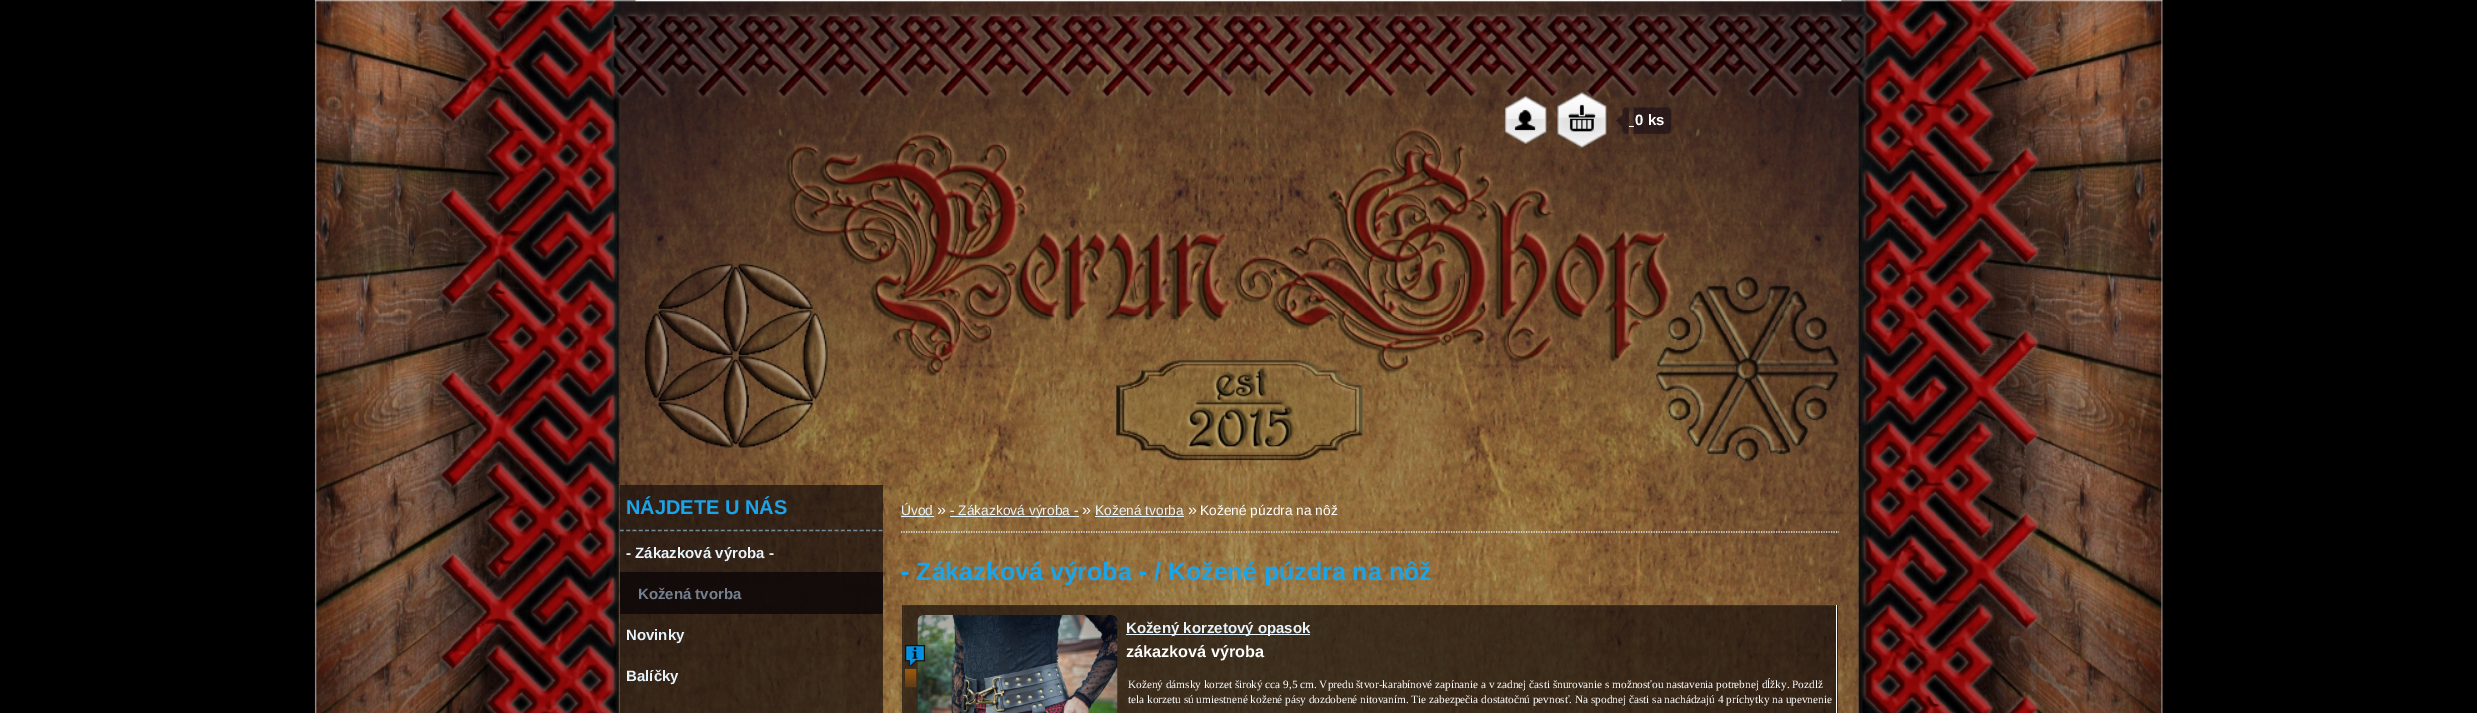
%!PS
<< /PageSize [2477 713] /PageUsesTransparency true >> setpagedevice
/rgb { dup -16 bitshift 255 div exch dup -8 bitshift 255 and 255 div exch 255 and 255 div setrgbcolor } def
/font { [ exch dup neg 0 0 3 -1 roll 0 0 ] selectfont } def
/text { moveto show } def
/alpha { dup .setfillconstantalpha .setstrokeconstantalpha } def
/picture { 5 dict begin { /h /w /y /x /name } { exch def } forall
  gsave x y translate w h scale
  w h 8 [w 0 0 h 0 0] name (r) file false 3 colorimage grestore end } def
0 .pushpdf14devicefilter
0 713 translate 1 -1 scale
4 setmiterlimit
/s1 { /LiberationSans-Bold 15 font 16#FFFFFF rgb } def
/s2 { /LiberationSans-Bold 20 font 16#1CA4E8 rgb } def
/s3 { /LiberationSans-Bold 15 font 16#E8F4FC rgb } def
/s4 { /LiberationSans-Bold 15 font 16#768190 rgb } def
/s5 { /LiberationSans-Regular 13.75 font 16#E8F4FC rgb } def
/s6 { /LiberationSans-Regular 16 font 16#FFFFFF rgb } def
/s7 { /LiberationSans-Regular 13.75 font 16#FFFFFF rgb } def
/s8 { /LiberationSans-Bold 25 font 16#1CA4E8 rgb } def
/s9 { /LiberationSans-Bold 16.25 font 16#FFFFFF rgb } def
/s10 { /LiberationSerif-Regular 11.25 font 16#FFFFFF rgb } def
16#000000 rgb
0 0 2477 713 rectfill
(pic1.raw) 314 0 1849 713 picture
(pic2.raw) 1504 96 43 48 picture
(pic3.raw) 1557 92 50 56 picture
(pic4.raw) 1616 107 13 27 picture
16#FFFFFF rgb
1629 126 5 1 rectfill
(pic5.raw) 1633 107 39 27 picture
s1
(0 ks) 1635 125 text
0.7 alpha
16#150D0B rgb
620 485 263 228 rectfill
1 alpha
16#718B98 rgb
1.2 setlinewidth
[3.75 2.56] 0 setdash
620 530.5 moveto 882.5 530.5 lineto stroke
s2
(NÁJDETE U NÁS) 626 514 text
s3
(- Zákazková výroba -) 626 558 text
0.84 alpha
16#0C0707 rgb
620 572 263 42 rectfill
1 alpha
s4
(Kožená tvorba) 638 599 text
s3
(Novinky) 626 640 text
(Balíčky) 626 681 text
16#E5EFFF rgb
[1.25 1.25] 0 setdash
901 532 moveto 1839 532 lineto stroke
s5
(Úvod) 901 515 text
901 516 33 1 rectfill
s6
(») 937 515 text
16#E8F4FC rgb
950 516 129 1 rectfill
s5
(- Zákazková výroba -) 950 515 text
s6
(») 1082 515 text
s5
(Kožená tvorba) 1095 515 text
1095 516 89 1 rectfill
s6
(») 1188 515 text
s7
(Kožené púzdra na nôž) 1200 515 text
s8
(- Zákazková výroba - / Kožené púzdra na nôž) 901 580 text
0.7 alpha
16#150D0B rgb
902 605 936 108 rectfill
1 alpha
16#29363E rgb
903 605 935 1 rectfill
16#FFFFFF rgb
1836 605 1 108 rectfill
16#29363E rgb
903 605 1 108 rectfill
(pic8.raw) 917 615 201 98 picture
(pic6.raw) 905 645 20 22 picture
(pic7.raw) 905 668 12 20 picture
16#E8F4FC rgb
1126 634 184 1 rectfill
s3
(Kožený korzetový opasok) 1126 633 text
s9
(zákazková výroba) 1126 657 text
s10
(Kožený dámsky korzet široký cca 9,5 cm. Vpredu štvor-karabínové zapínanie a v zadnej časti šnurovanie s možnosťou nastavenia potrebnej dĺžky. Pozdlž) 1128 688 text
(tela korzetu sú umiestnené kožené pásy dozdobené nitovaním. Tie zabezpečia dostatočnú pevnosť. Na spodnej časti sa nachádzajú 4 príchytky na upevnenie) 1128 703 text
.poppdf14devicefilter showpage
